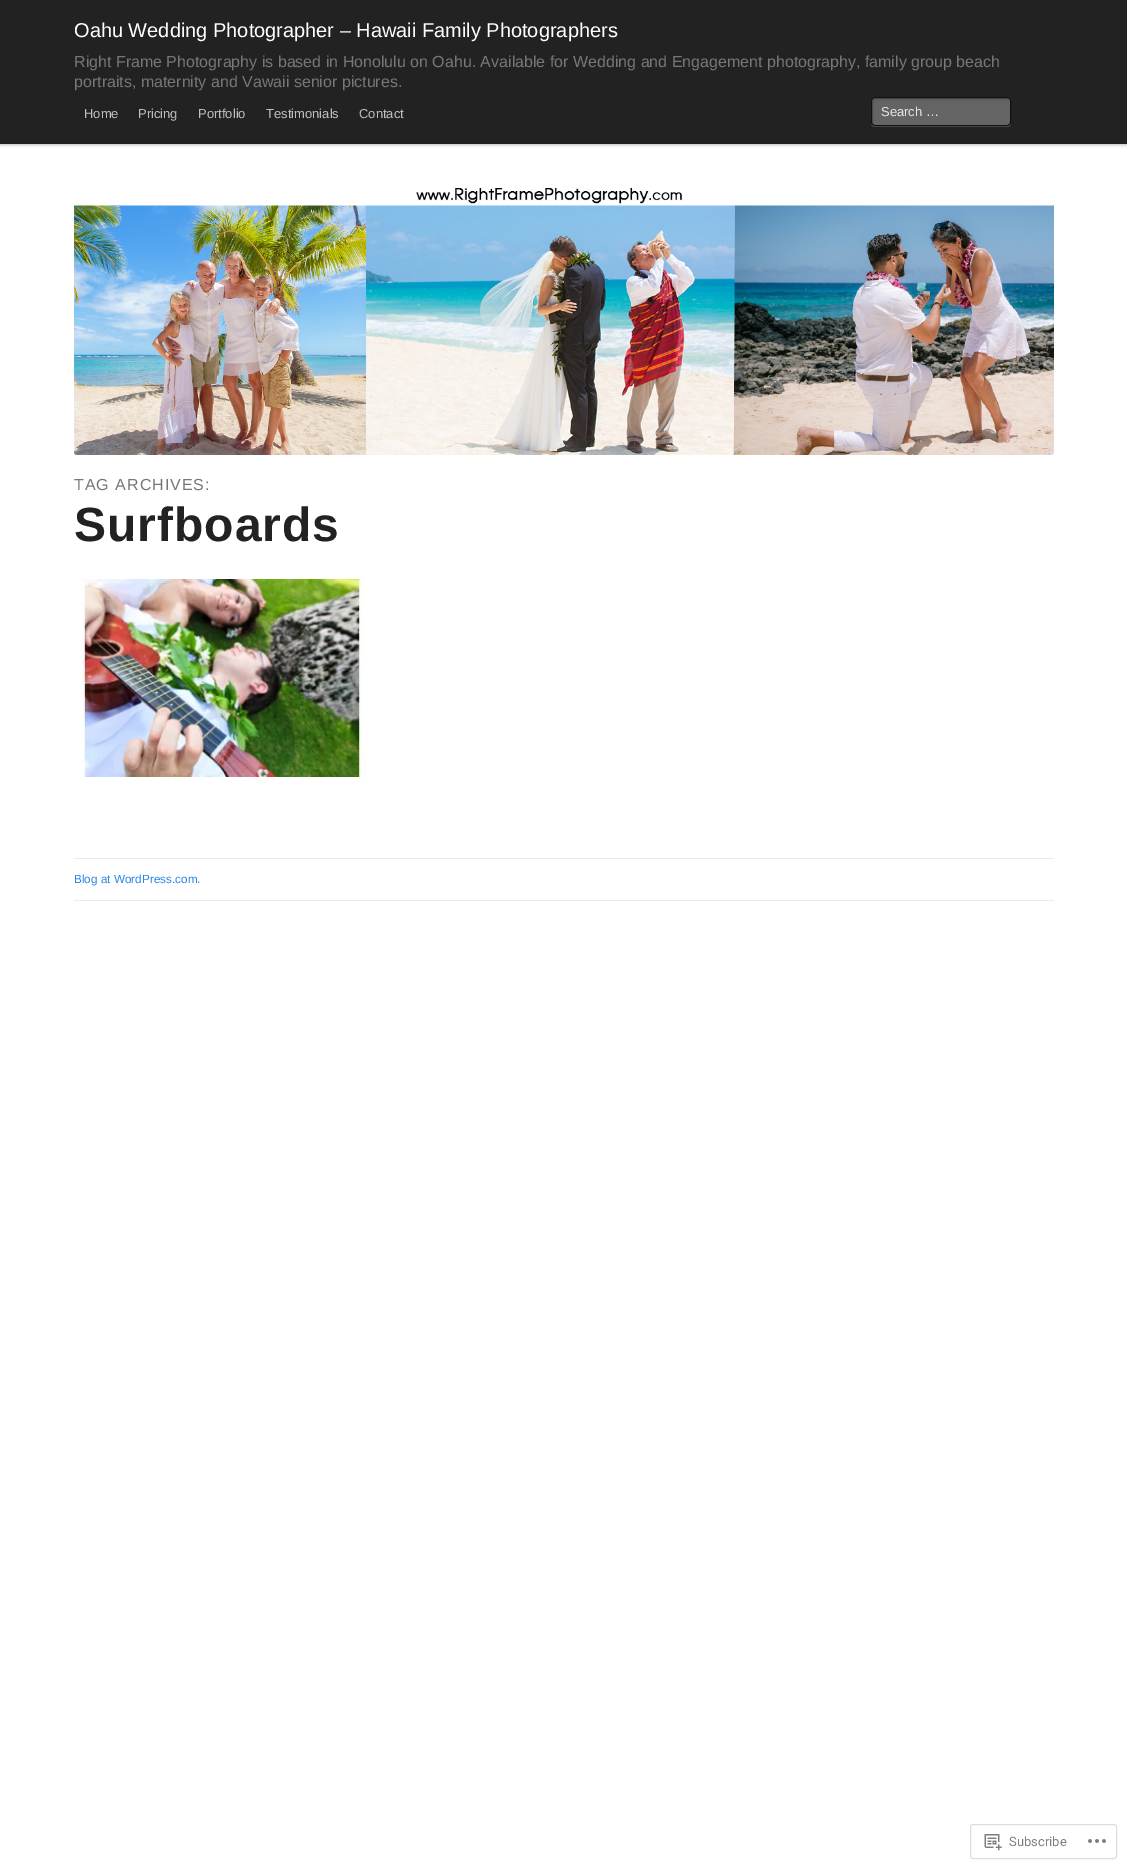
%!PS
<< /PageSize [1127 1869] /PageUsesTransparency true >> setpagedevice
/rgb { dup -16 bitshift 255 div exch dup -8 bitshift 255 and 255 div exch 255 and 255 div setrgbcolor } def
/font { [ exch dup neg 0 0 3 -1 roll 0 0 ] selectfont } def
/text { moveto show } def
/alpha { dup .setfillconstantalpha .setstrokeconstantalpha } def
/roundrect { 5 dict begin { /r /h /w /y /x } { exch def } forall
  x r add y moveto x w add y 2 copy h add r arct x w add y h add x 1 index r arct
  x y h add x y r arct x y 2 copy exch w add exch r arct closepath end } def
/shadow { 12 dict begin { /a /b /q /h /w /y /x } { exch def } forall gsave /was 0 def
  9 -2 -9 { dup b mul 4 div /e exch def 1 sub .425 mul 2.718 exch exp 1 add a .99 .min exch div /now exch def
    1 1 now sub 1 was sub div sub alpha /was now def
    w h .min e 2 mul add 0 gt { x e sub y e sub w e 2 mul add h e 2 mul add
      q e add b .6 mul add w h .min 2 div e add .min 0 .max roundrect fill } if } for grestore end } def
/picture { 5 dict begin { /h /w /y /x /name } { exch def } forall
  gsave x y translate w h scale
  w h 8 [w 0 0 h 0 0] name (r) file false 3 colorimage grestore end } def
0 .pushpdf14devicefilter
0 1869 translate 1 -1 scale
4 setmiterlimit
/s1 { /LiberationSans-Regular 20 font 16#FFFFFF rgb } def
/s2 { /LiberationSans-Regular 16 font 16#777777 rgb } def
/s3 { /LiberationSans-Regular 13 font 16#BFBFBF rgb } def
/s4 { /LiberationSans-Regular 13 font 16#E6E6E6 rgb } def
/s5 { /LiberationSans-Regular 11.75 font 16#2A85E8 rgb } def
/s6 { /Roboto-Regular 13 font 16#7B7F85 rgb } def
16#FFFFFF rgb
0 0 1127 1869 rectfill
16#000000 rgb
0 1 1127 144 0 1.5 0.25 shadow
16#222222 rgb
0 0 1127 143 rectfill
16#1F1F1F rgb
0 143 1127 1 rectfill
s1
(Oahu Wedding Photographer – Hawaii Family Photographers) 74 37 text
s2
(Right Frame Photography is based in Honolulu on Oahu. Available for Wedding and Engagement photography, family group beach) 74 67 text
(portraits, maternity and Vawaii senior pictures.) 74 87 text
s3
(Home) 84 118 text
(Pricing) 138 118 text
(Portfolio) 198 118 text
(Testimonials) 266 118 text
(Contact) 359 118 text
16#595959 rgb
871 122 moveto 871 123 lineto 871 125 873 127 875 127 curveto 1007 127 lineto 1009 127 1011 125 1011 123 curveto 1011 122 lineto 1011 124 1009 126 1007 126 curveto 875 126 lineto 873 126 871 124 871 122 curveto closepath fill
0.3 alpha
16#FFFFFF rgb
871 97 140 29 4 roundrect fill
1 alpha
(pic1.raw) 871 98 140 27 picture
16#111111 rgb
871.5 97.5 139 28 3.5 roundrect stroke
s4
(Search …) 881 116 text
(pic2.raw) 74 188 980 267 picture
/LiberationSans-Regular 16 font
16#777777 rgb
74 490 moveto 1 0 (TAG ARCHIVES:) ashow
/LiberationSans-Bold 48 font
16#222222 rgb
74 541 moveto 1 0 (Surfboards) ashow
(pic3.raw) 81 579 286 198 picture
16#EAEAEA rgb
74 858 980 1 rectfill
74 900 980 1 rectfill
s5
(Blog at WordPress.com.) 74 883 text
16#DDDDDF rgb
970.5 1824.5 146 34 2.5 roundrect stroke
(pic4.raw) 984 1834 18 17 picture
s6
(Subscribe) 1009 1846 text
(pic5.raw) 1088 1839 18 4 picture
.poppdf14devicefilter showpage
